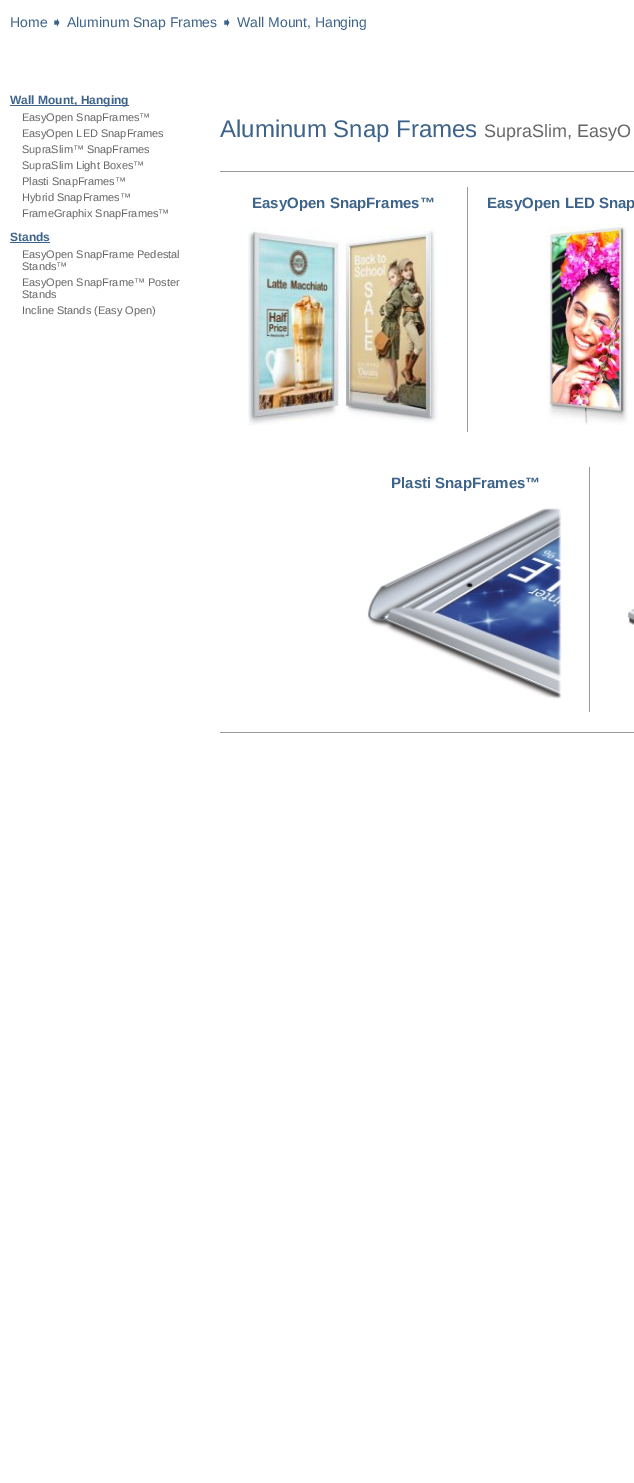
%!PS
<< /PageSize [634 1483] >> setpagedevice
/rgb { dup -16 bitshift 255 div exch dup -8 bitshift 255 and 255 div exch 255 and 255 div setrgbcolor } def
/font { [ exch dup neg 0 0 3 -1 roll 0 0 ] selectfont } def
/text { moveto show } def
/picture { 5 dict begin { /h /w /y /x /name } { exch def } forall
  gsave x y translate w h scale
  w h 8 [w 0 0 h 0 0] name (r) file false 3 colorimage grestore end } def
0 1483 translate 1 -1 scale
4 setmiterlimit
/s1 { /LiberationSans-Regular 14 font 16#3D638B rgb } def
/s2 { /DejaVuSans-Regular 14 font 16#3D638B rgb } def
/s3 { /LiberationSans-Bold 12 font 16#3D638B rgb } def
/s4 { /LiberationSans-Regular 11 font 16#666666 rgb } def
/s5 { /LiberationSans-Regular 24 font 16#3D638B rgb } def
/s6 { /LiberationSans-Regular 18 font 16#666666 rgb } def
/s7 { /LiberationSans-Bold 15 font 16#3D638B rgb } def
16#FFFFFF rgb
0 0 634 1483 rectfill
s1
(Home) 10 27 text
s2
(➧) 51 27 text
s1
(Aluminum Snap Frames) 67 27 text
s2
(➧) 221 27 text
s1
(Wall Mount, Hanging) 237 27 text
10 105 119 1 rectfill
s3
(Wall Mount, Hanging) 10 104 text
s4
(EasyOpen SnapFrames™) 22 121 text
(EasyOpen LED SnapFrames) 22 137 text
(SupraSlim™ SnapFrames) 22 153 text
(SupraSlim Light Boxes™) 22 169 text
(Plasti SnapFrames™) 22 185 text
(Hybrid SnapFrames™) 22 201 text
(FrameGraphix SnapFrames™) 22 217 text
s3
(Stands) 10 241 text
10 242 40 1 rectfill
s4
(EasyOpen SnapFrame Pedestal) 22 258 text
(Stands™) 22 270 text
(EasyOpen SnapFrame™ Poster) 22 286 text
(Stands) 22 298 text
(Incline Stands \(Easy Open\)) 22 314 text
s5
(Aluminum Snap Frames) 220 137 text
s6
(SupraSlim, EasyO) 484 137 text
16#999999 rgb
220 171 414 1 rectfill
220 732 414 1 rectfill
s7
(EasyOpen SnapFrames™) 252 208 text
(pic1.raw) 248 227 190 198 picture
16#999999 rgb
467 187 1 245 rectfill
s7
(EasyOpen LED Snap) 487 208 text
(pic2.raw) 546 227 82 198 picture
(Plasti SnapFrames™) 391 488 text
(pic3.raw) 367 508 195 191 picture
16#999999 rgb
589 467 1 245 rectfill
(pic4.raw) 627 608 7 18 picture
showpage
